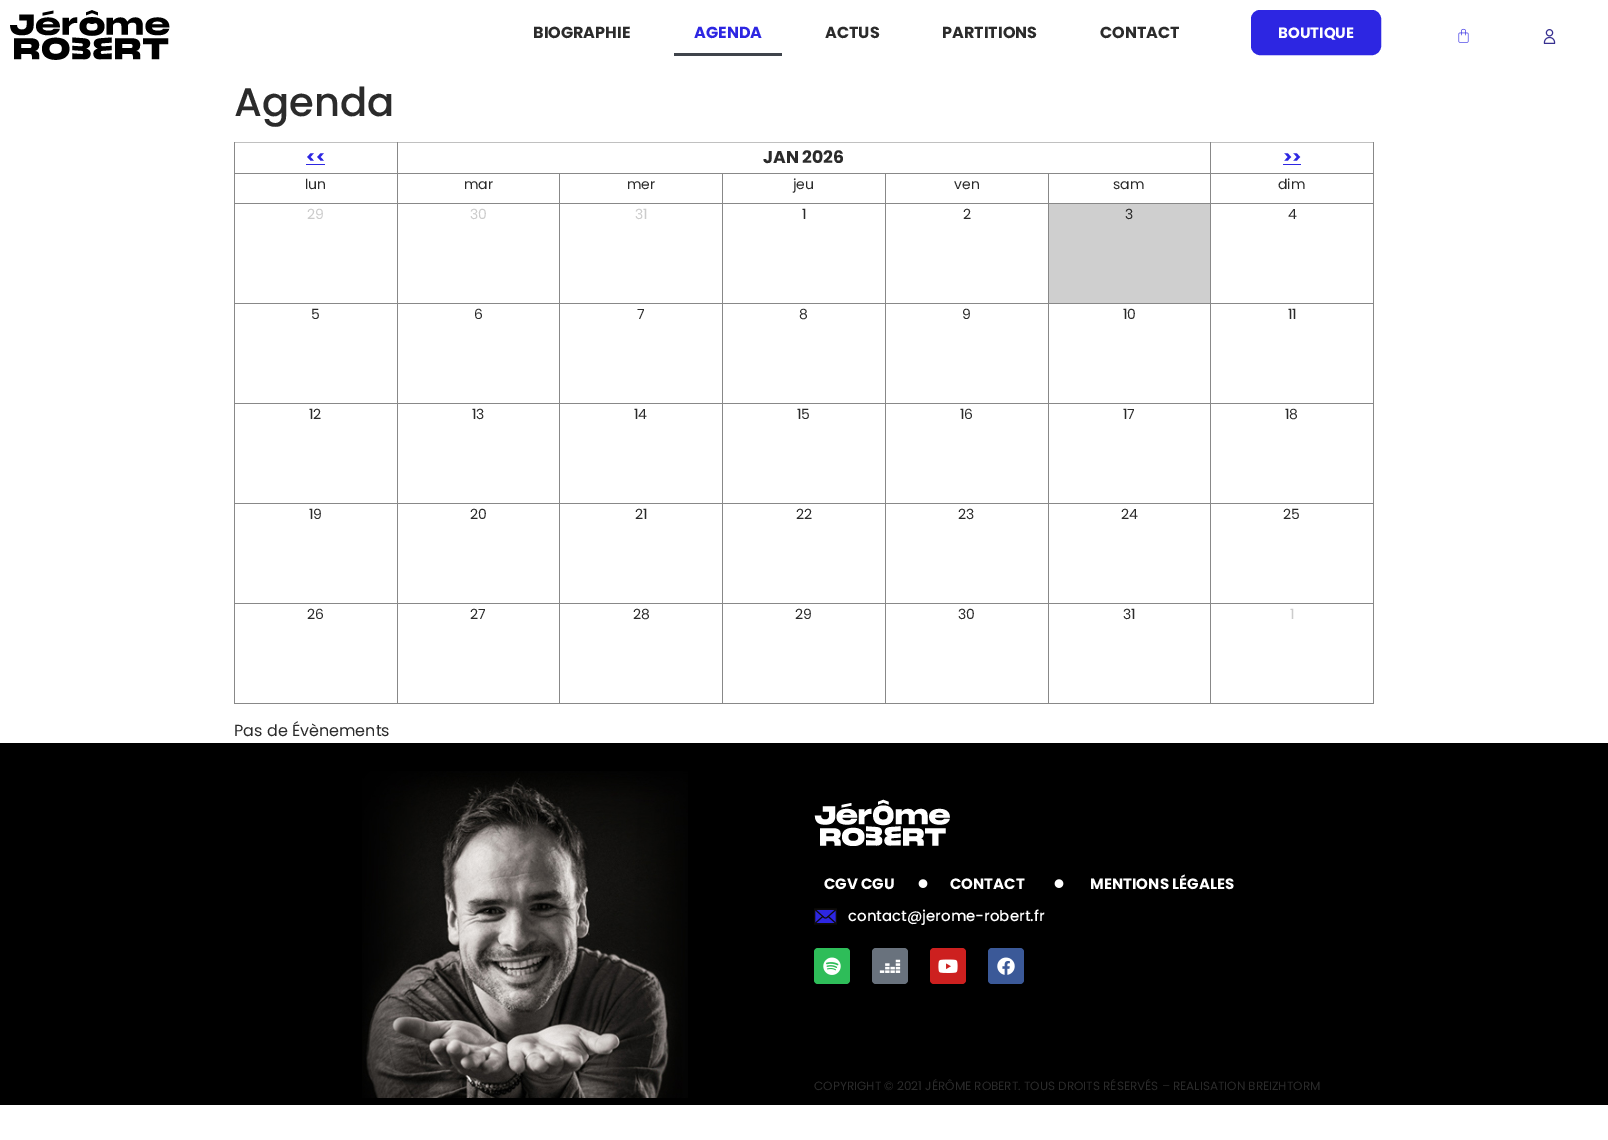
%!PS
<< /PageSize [1608 1140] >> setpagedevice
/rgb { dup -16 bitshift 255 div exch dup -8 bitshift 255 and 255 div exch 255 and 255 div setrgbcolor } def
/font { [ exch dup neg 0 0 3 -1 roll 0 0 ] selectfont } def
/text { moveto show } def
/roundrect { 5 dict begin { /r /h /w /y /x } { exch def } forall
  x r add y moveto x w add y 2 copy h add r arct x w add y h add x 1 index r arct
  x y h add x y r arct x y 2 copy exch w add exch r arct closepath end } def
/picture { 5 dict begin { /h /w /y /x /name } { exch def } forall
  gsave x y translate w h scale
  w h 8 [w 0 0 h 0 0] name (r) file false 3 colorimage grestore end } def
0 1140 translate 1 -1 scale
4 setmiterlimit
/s1 { /Poppins-Bold 16 font 16#2B2B2B rgb } def
/s2 { /Poppins-Bold 16 font 16#2D26E2 rgb } def
/s3 { /Poppins-Bold 15 font 16#FFFFFF rgb } def
/s4 { /Poppins-Medium 40 font 16#2B2B2B rgb } def
/s5 { /Poppins-Bold 17.25 font 16#2D26E2 rgb } def
/s6 { /Poppins-Bold 17.25 font 16#2B2B2B rgb } def
/s7 { /Poppins-Regular 14 font 16#2B2B2B rgb } def
/s8 { /Poppins-Regular 14 font 16#CCCCCC rgb } def
/s9 { /Poppins-Regular 16 font 16#2B2B2B rgb } def
/s10 { /Poppins-Medium 15 font 16#FFFFFF rgb } def
/s11 { /Poppins-Regular 12 font 16#2B2B2B rgb } def
16#FFFFFF rgb
0 0 1608 1140 rectfill
16#C0C0C0 rgb
234 142 1140 1 rectfill
(pic1.raw) 10 10 160 50 picture
s1
(BIOGRAPHIE) 533 38 text
s2
(AGENDA) 694 38 text
16#3F444B rgb
674 53 108 3 rectfill
s1
(ACTUS) 825 38 text
(PARTITIONS) 942 38 text
(CONTACT) 1100 38 text
16#2D26E2 rgb
1252.5 11.5 127 42 7.5 roundrect gsave fill grestore
3 setlinewidth
stroke
s3
(BOUTIQUE) 1278 38 text
(pic2.raw) 1458 28 11 15 picture
(pic3.raw) 1543 29 13 15 picture
s4
(Agenda) 234 116 text
16#888888 rgb
1210 173 164 1 rectfill
1210 203 164 1 rectfill
1210 303 164 1 rectfill
1210 403 164 1 rectfill
1210 503 164 1 rectfill
1210 603 164 1 rectfill
1373 603 1 101 rectfill
1210 703 164 1 rectfill
1210 603 1 101 rectfill
1048 603 163 1 rectfill
1210 503 1 101 rectfill
1048 503 163 1 rectfill
1210 403 1 101 rectfill
1048 403 163 1 rectfill
1210 303 1 101 rectfill
1048 303 163 1 rectfill
1210 203 1 101 rectfill
1048 203 163 1 rectfill
1210 173 1 31 rectfill
1048 173 163 1 rectfill
1048 703 163 1 rectfill
1048 603 1 101 rectfill
885 603 164 1 rectfill
1048 503 1 101 rectfill
885 503 164 1 rectfill
1048 403 1 101 rectfill
885 403 164 1 rectfill
1048 303 1 101 rectfill
885 303 164 1 rectfill
1048 203 1 101 rectfill
885 203 164 1 rectfill
1048 173 1 31 rectfill
885 173 164 1 rectfill
885 703 164 1 rectfill
885 603 1 101 rectfill
722 603 164 1 rectfill
885 503 1 101 rectfill
722 503 164 1 rectfill
885 403 1 101 rectfill
722 403 164 1 rectfill
885 303 1 101 rectfill
722 303 164 1 rectfill
885 203 1 101 rectfill
722 203 164 1 rectfill
885 173 1 31 rectfill
722 173 164 1 rectfill
722 703 164 1 rectfill
722 603 1 101 rectfill
559 603 164 1 rectfill
722 503 1 101 rectfill
559 503 164 1 rectfill
722 403 1 101 rectfill
559 403 164 1 rectfill
722 303 1 101 rectfill
559 303 164 1 rectfill
722 203 1 101 rectfill
559 203 164 1 rectfill
722 173 1 31 rectfill
559 173 164 1 rectfill
559 703 164 1 rectfill
559 603 1 101 rectfill
397 603 163 1 rectfill
559 503 1 101 rectfill
397 503 163 1 rectfill
559 403 1 101 rectfill
397 403 163 1 rectfill
559 303 1 101 rectfill
397 303 163 1 rectfill
559 203 1 101 rectfill
397 203 163 1 rectfill
559 173 1 31 rectfill
397 173 163 1 rectfill
397 703 163 1 rectfill
397 603 1 101 rectfill
234 603 164 1 rectfill
397 503 1 101 rectfill
234 503 164 1 rectfill
397 403 1 101 rectfill
234 403 164 1 rectfill
397 303 1 101 rectfill
234 303 164 1 rectfill
397 203 1 101 rectfill
234 203 164 1 rectfill
397 173 1 31 rectfill
234 173 164 1 rectfill
397 142 1 32 rectfill
s5
(<<) 306 163 text
306 164 19 1 rectfill
16#888888 rgb
1210 142 1 32 rectfill
s6
(JAN 2026) 763 163 text
s5
(>>) 1283 163 text
1283 164 18 1 rectfill
16#888888 rgb
234 703 164 1 rectfill
234 603 1 101 rectfill
234 503 1 101 rectfill
234 403 1 101 rectfill
234 303 1 101 rectfill
234 203 1 101 rectfill
234 142 1 62 rectfill
s7
(lun) 305 189 text
(mar) 464 189 text
(mer) 627 189 text
(jeu) 793 189 text
(ven) 954 189 text
(sam) 1113 189 text
16#888888 rgb
1373 503 1 101 rectfill
1373 403 1 101 rectfill
1373 303 1 101 rectfill
1373 203 1 101 rectfill
1373 142 1 62 rectfill
s7
(dim) 1278 189 text
s8
(29) 307 219 text
(30) 470 219 text
(31) 635 219 text
s7
(1) 802 219 text
(2) 963 219 text
16#CFCFCF rgb
1049 204 161 99 rectfill
s7
(3) 1125 219 text
(4) 1288 219 text
(5) 311 319 text
(6) 474 319 text
(7) 637 319 text
(8) 799 319 text
(9) 962 319 text
(10) 1123 319 text
(11) 1288 319 text
(12) 309 419 text
(13) 472 419 text
(14) 634 419 text
(15) 797 419 text
(16) 960 419 text
(17) 1123 419 text
(18) 1285 419 text
(19) 309 519 text
(20) 470 519 text
(21) 635 519 text
(22) 796 519 text
(23) 958 519 text
(24) 1121 519 text
(25) 1283 519 text
(26) 307 619 text
(27) 470 619 text
(28) 633 619 text
(29) 795 619 text
(30) 958 619 text
(31) 1123 619 text
s8
(1) 1290 619 text
s9
(Pas de Évènements) 234 736 text
16#000000 rgb
0 743 1608 362 rectfill
(pic4.raw) 362 771 326 327 picture
(pic5.raw) 814 799 136 47 picture
s3
(CGV CGU) 824 889 text
(pic6.raw) 918 879 10 9 picture
(CONTACT) 950 889 text
(pic6.raw) 1054 879 10 9 picture
(MENTIONS LÉGALES) 1090 889 text
(pic7.raw) 814 908 23 17 picture
s10
(contact@jerome-robert.fr) 848 921 text
16#2EBD59 rgb
814 948 36 36 4 roundrect fill
(pic8.raw) 823 957 18 18 picture
16#69727D rgb
872 948 36 36 4 roundrect fill
(pic9.raw) 879 959 22 14 picture
16#CD201F rgb
930 948 36 36 4 roundrect fill
(pic10.raw) 938 959 20 14 picture
16#3B5998 rgb
988 948 36 36 4 roundrect fill
(pic11.raw) 997 957 18 18 picture
s11
(COPYRIGHT © 2021 JÉRÔME ROBERT. TOUS DROITS RÉSERVÉS – REALISATION BREIZHTORM) 814 1090 text
showpage
